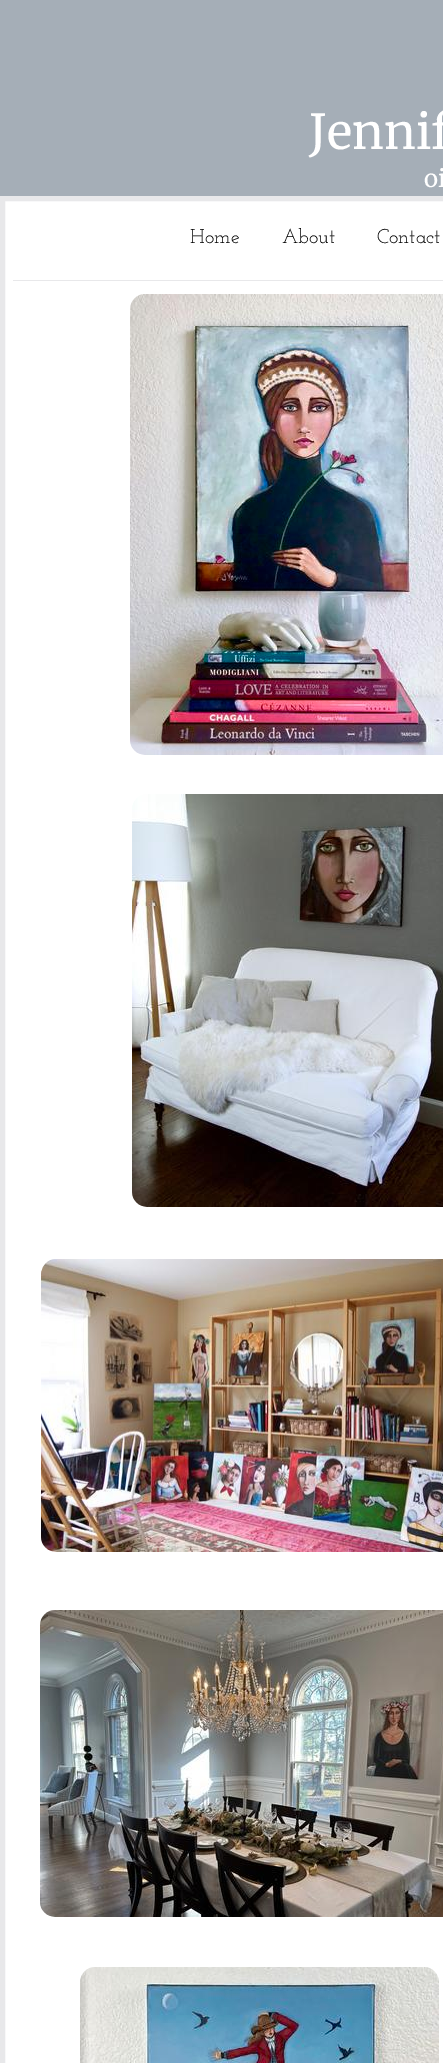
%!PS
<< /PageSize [443 2063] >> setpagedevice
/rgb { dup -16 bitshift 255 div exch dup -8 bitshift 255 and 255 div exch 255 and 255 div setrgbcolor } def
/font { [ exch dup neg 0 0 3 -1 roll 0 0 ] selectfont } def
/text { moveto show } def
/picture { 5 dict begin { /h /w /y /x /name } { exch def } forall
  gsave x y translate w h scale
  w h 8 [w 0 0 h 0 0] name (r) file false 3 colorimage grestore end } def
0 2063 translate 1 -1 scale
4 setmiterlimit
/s1 { /Merriweather-Light 48 font 16#FFFFFF rgb } def
/s2 { /Merriweather-Light 24 font 16#FFFFFF rgb } def
/s3 { /JosefinSlab-Thin 20 font 16#000000 rgb } def
16#A5AEB7 rgb
0 0 443 2063 rectfill
16#FFFFFF rgb
2.5 198.5 moveto 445.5 198.5 lineto 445.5 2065.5 lineto 2.5 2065.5 lineto closepath gsave fill grestore
16#E8E8EA rgb
5 setlinewidth
stroke
s1
(Jennif) 309 149 text
s2
(oi) 424 187 text
16#E8E8EA rgb
13 280 430 1 rectfill
s3
(Home) 190 243 text
(About) 282 243 text
(Contact) 377 243 text
(pic1.raw) 130 294 313 461 picture
(pic2.raw) 132 794 311 413 picture
(pic3.raw) 41 1259 402 293 picture
(pic4.raw) 40 1610 403 307 picture
(pic5.raw) 80 1967 359 96 picture
showpage
